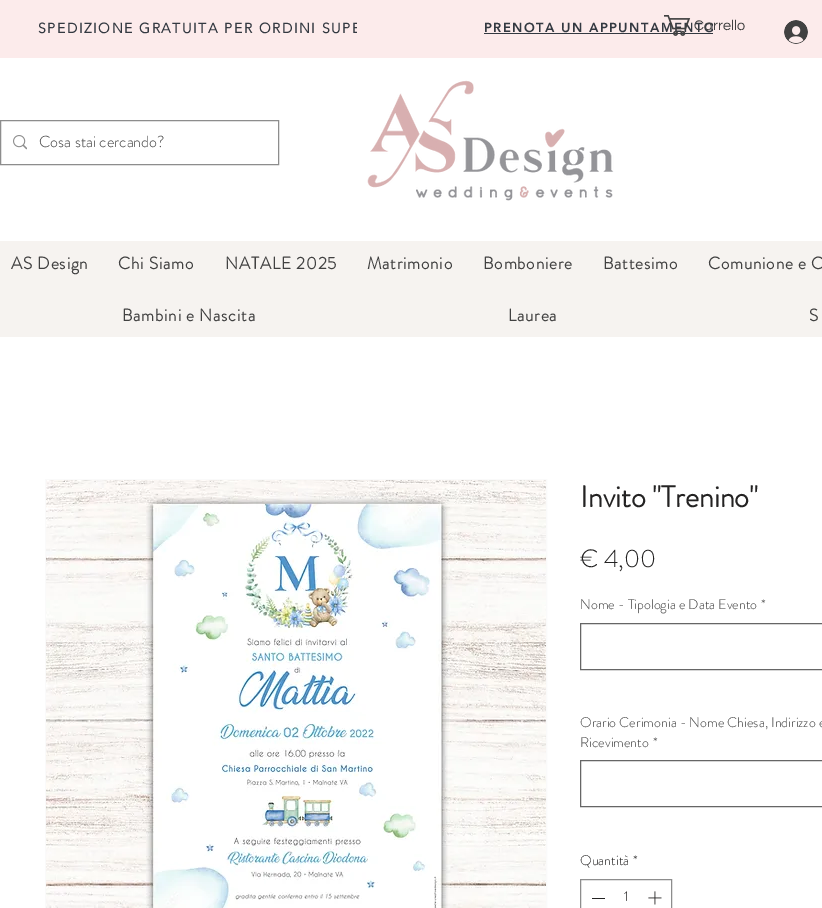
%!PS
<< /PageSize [822 908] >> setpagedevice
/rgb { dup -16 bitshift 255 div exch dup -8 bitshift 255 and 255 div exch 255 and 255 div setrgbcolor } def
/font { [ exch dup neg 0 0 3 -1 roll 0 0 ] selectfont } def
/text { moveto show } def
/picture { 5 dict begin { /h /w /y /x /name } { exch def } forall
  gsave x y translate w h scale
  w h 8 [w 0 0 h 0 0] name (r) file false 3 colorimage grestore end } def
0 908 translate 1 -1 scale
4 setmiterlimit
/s1 { /Questrial-Regular 14.5 font 16#414141 rgb } def
/s2 { /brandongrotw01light-Light 16 font 16#414141 rgb } def
/s3 { /brandongrotw01light-Bold 30 font 16#242323 rgb } def
/s4 { /brandongrotw01light-Light 25 font 16#242323 rgb } def
/s5 { /brandongrotw01light-Light 14 font 16#414141 rgb } def
/s6 { /brandongrotw01light-Light 14 font 16#242323 rgb } def
16#FFFFFF rgb
0 0 822 908 rectfill
16#FCEBEB rgb
0 0 357 58 rectfill
/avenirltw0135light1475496-Bold 14 font
16#333941 rgb
38 33 moveto 1.55 0 (SPEDIZIONE GRATUITA PER ORDINI SUPE) ashow
16#FCEBEB rgb
357 0 356 58 rectfill
/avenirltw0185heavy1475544-Black 13 font
16#333941 rgb
484 32 moveto 1.4 0 (PRENOTA UN APPUNTAMENTO) ashow
484 33 232 1 rectfill
16#FCEBEB rgb
713 0 109 58 rectfill
(pic1.raw) 664 15 27 21 picture
s1
(Carrello) 694 30 text
(pic2.raw) 784 20 24 24 picture
16#8D8D8D rgb
0.5 120.5 278 44 rectstroke
(pic3.raw) 13 135 14 15 picture
s2
(Cosa stai cercando?) 39 147 text
(pic4.raw) 367 80 247 121 picture
16#F6F3F0 rgb
0 241 822 96 rectfill
/brandongrotw01light-Bold 17 font
16#414141 rgb
11 269 moveto 0.8 0 (AS Design) ashow
118 269 moveto 0.8 0 (Chi Siamo) ashow
225 269 moveto 0.8 0 (NATALE 2025) ashow
367 269 moveto 0.8 0 (Matrimonio) ashow
483 269 moveto 0.8 0 (Bomboniere) ashow
603 269 moveto 0.8 0 (Battesimo) ashow
708 269 moveto 0.8 0 (Comunione e C) ashow
122 321 moveto 0.8 0 (Bambini e Nascita) ashow
508 321 moveto 0.8 0 (Laurea) ashow
809 321 moveto 0.8 0 (S) ashow
16#FAFAFA rgb
45.5 479.5 501 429 rectstroke
(pic5.raw) 46 480 500 428 picture
s3
(Invito "Trenino") 580 507 text
s4
(€ 4,00) 580 567 text
s5
(Nome - Tipologia e Data Evento) 580 609 text
(*) 761 609 text
16#666666 rgb
580.5 623.5 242 46 rectstroke
s5
(Orario Cerimonia - Nome Chiesa, Indirizzo e) 580 727 text
(Ricevimento) 580 747 text
(*) 653 747 text
16#666666 rgb
580.5 760.5 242 46 rectstroke
s6
(Quantità) 580 865 text
(*) 633 865 text
16#8D8D8D rgb
580.5 879.5 91 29 rectstroke
16#242323 rgb
592 898 13 1 rectfill
(1) 624 901 text
(pic6.raw) 648 891 14 14 picture
showpage
